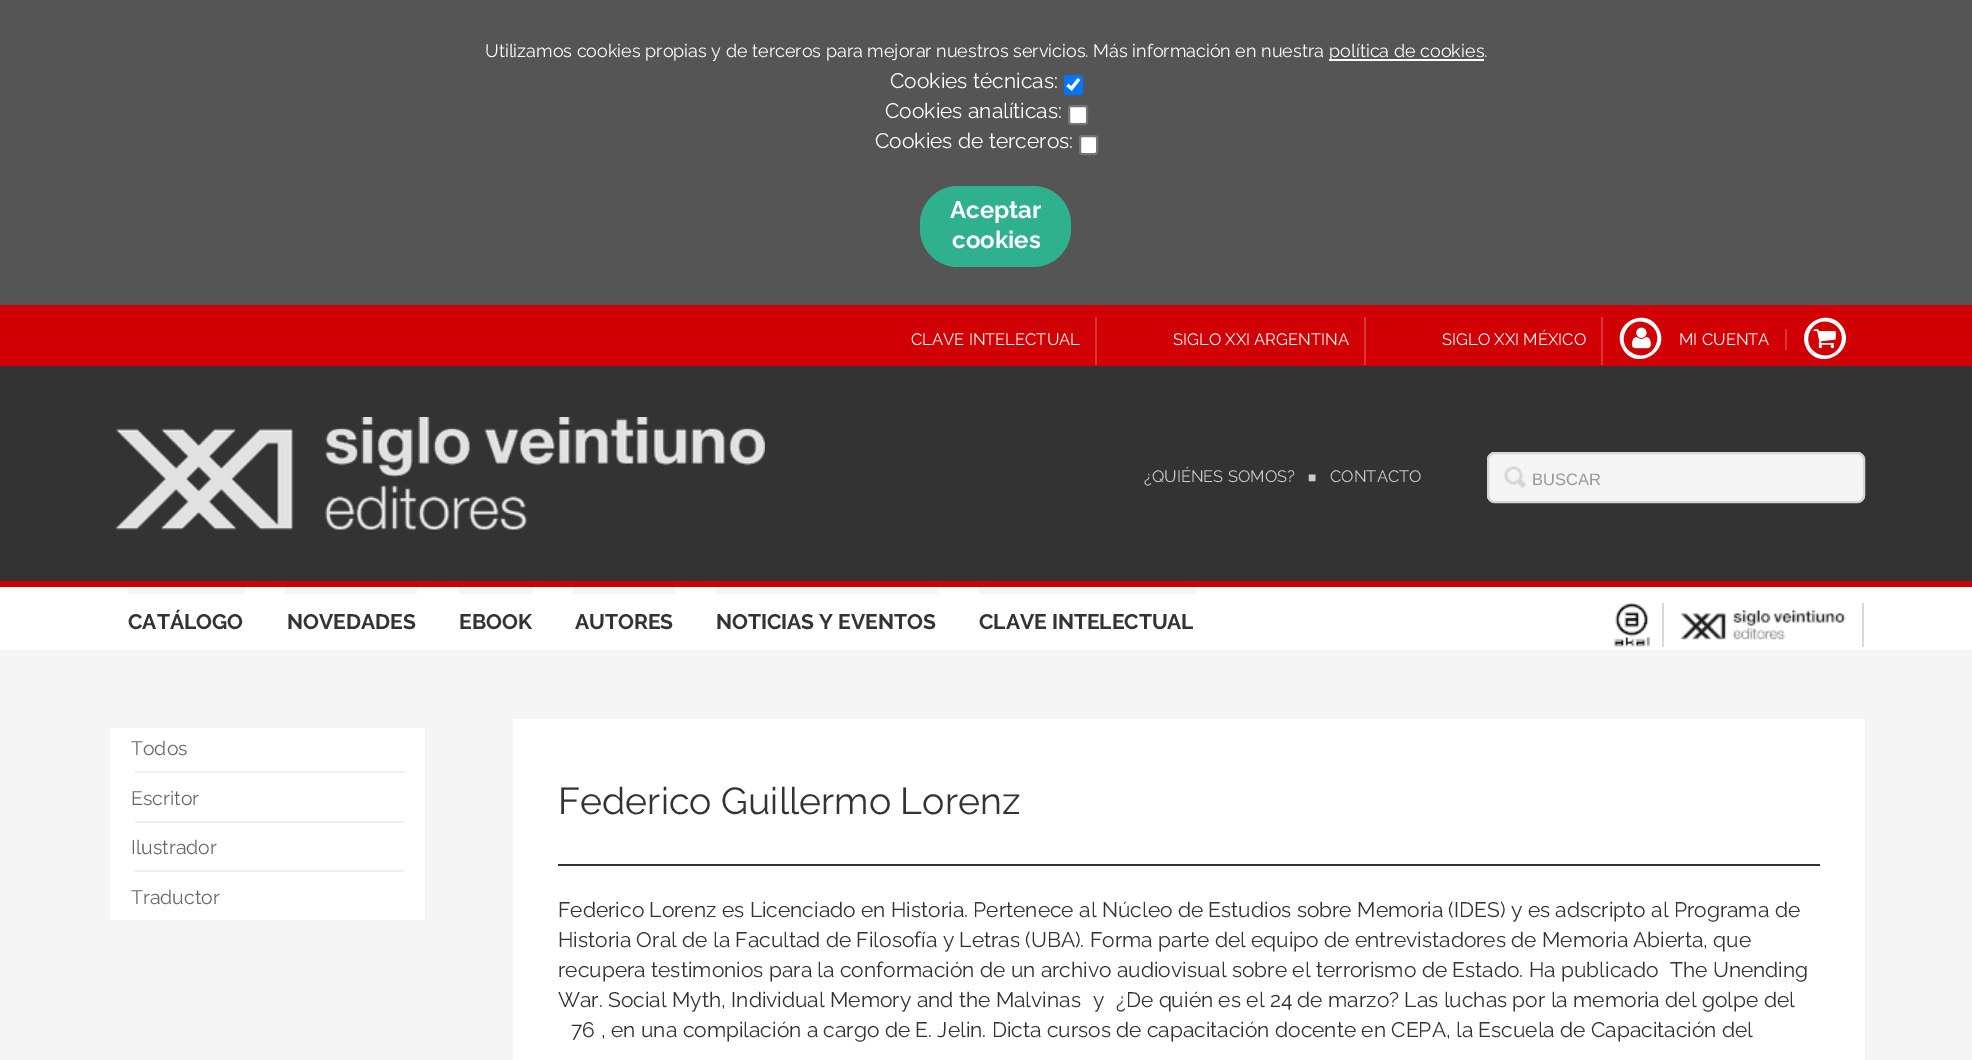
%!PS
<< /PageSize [1972 1060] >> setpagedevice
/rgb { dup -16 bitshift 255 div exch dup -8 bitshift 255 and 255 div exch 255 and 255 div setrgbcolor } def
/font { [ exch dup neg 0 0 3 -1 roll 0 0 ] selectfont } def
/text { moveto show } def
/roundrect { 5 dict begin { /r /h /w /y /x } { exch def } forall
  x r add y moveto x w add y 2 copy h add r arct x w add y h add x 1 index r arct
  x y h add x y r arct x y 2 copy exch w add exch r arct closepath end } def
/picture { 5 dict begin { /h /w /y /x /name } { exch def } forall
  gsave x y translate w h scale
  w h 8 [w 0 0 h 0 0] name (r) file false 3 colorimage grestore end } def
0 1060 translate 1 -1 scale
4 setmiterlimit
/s1 { /Raleway-Regular 18 font 16#FFFFFF rgb } def
/s2 { /Raleway-Regular 21 font 16#FFFFFF rgb } def
/s3 { /Raleway-Bold 24 font 16#FFFFFF rgb } def
/s4 { /Raleway-Regular 16.5 font 16#FFFFFF rgb } def
/s5 { /Raleway-Regular 16.5 font 16#CCCCCC rgb } def
/s6 { /LiberationSerif-Regular 14 font 16#CCCCCC rgb } def
/s7 { /LiberationSans-Regular 16.5 font 16#999999 rgb } def
/s8 { /Raleway-Bold 21 font 16#333333 rgb } def
/s9 { /Raleway-Regular 19.5 font 16#666666 rgb } def
/s10 { /Raleway-Regular 37.5 font 16#333333 rgb } def
/s11 { /Raleway-Regular 21 font 16#333333 rgb } def
16#F5F5F5 rgb
0 0 1972 1060 rectfill
16#555555 rgb
0 0 1972 305 rectfill
s1
(Utilizamos cookies propias y de terceros para mejorar nuestros servicios. Más información en nuestra) 485 57 text
1329 59 155 2 rectfill
(política de cookies.) 1329 57 text
s2
(Cookies técnicas:) 890 88 text
16#0075FF rgb
1064 75 19 20 3 roundrect fill
16#FFFFFF rgb
3.1 setlinewidth
1067.5 85 moveto 1071.5 88.5 lineto 1079 79 lineto stroke
(Cookies analíticas:) 885 118 text
1069 106 18 18 2 roundrect gsave fill grestore
16#767676 rgb
2 setlinewidth
stroke
s2
(Cookies de terceros:) 875 148 text
1080 136 17 18 2 roundrect gsave fill grestore
16#767676 rgb
stroke
16#2FB18D rgb
920 186 151 81 38 roundrect fill
s3
(Aceptar) 950 218 text
(cookies) 952 248 text
16#333333 rgb
0 366 1972 215 rectfill
16#D10005 rgb
0 305 1972 61 rectfill
s4
(CLAVE INTELECTUAL) 911 345 text
(SIGLO XXI ARGENTINA) 1173 345 text
16#DA3337 rgb
1095 317 2 48 rectfill
s4
(SIGLO XXI MÉXICO) 1442 345 text
16#DA3337 rgb
1364 317 2 48 rectfill
1601 317 2 48 rectfill
(pic1.raw) 1632 327 19 22 picture
16#FFFFFF rgb
1647 323 moveto 1627 314 1613 345 1634 354 curveto 1654 363 1668 332 1647 323 curveto closepath 1658 328 moveto 1672 351 1636 372 1623 349 curveto 1609 325 1645 305 1658 328 curveto closepath fill
(MI CUENTA) 1679 345 text
16#DA3337 rgb
1785 329 2 21 rectfill
(pic2.raw) 1813 329 23 20 picture
16#FFFFFF rgb
1832 323 moveto 1811 314 1798 345 1818 354 curveto 1839 363 1852 332 1832 323 curveto closepath 1843 328 moveto 1856 351 1821 372 1807 349 curveto 1794 325 1829 305 1843 328 curveto closepath fill
16#CE0005 rgb
0 581 1972 6 rectfill
(pic3.raw) 115 417 650 113 picture
s5
(¿QUIÉNES SOMOS?) 1144 482 text
s6
(■) 1308 482 text
s5
(CONTACTO) 1330 482 text
16#F5F5F5 rgb
1487 452 378 51 8 roundrect fill
(pic4.raw) 1504 466 22 22 picture
16#D5D5D5 rgb
1488 453 376 49 7 roundrect stroke
s7
(BUSCAR) 1532 485 text
16#FFFFFF rgb
0 587 1972 63 rectfill
16#F5F5F5 rgb
128 587 117 7 rectfill
s8
(CATÁLOGO) 128 629 text
16#F5F5F5 rgb
285 587 132 7 rectfill
s8
(NOVEDADES) 287 629 text
16#F5F5F5 rgb
458 587 75 7 rectfill
s8
(EBOOK) 459 629 text
16#F5F5F5 rgb
573 587 102 7 rectfill
s8
(AUTORES) 575 629 text
16#F5F5F5 rgb
716 587 222 7 rectfill
s8
(NOTICIAS Y EVENTOS) 716 629 text
16#F5F5F5 rgb
978 587 218 7 rectfill
s8
(CLAVE INTELECTUAL) 979 629 text
16#D7DADB rgb
1662 603 2 44 rectfill
(pic5.raw) 1614 603 36 44 picture
1862 603 2 44 rectfill
(pic6.raw) 1680 610 166 30 picture
16#FFFFFF rgb
110 728 315 192 rectfill
16#EFEFEF rgb
135 771 269 2 rectfill
s9
(Todos) 131 755 text
16#EFEFEF rgb
135 821 269 2 rectfill
s9
(Escritor) 131 805 text
16#EFEFEF rgb
135 870 269 2 rectfill
s9
(Ilustrador) 131 854 text
(Traductor) 131 904 text
16#FFFFFF rgb
513 719 1352 341 rectfill
16#333333 rgb
558 864 1262 2 rectfill
s10
(Federico Guillermo Lorenz) 558 814 text
s11
(Federico Lorenz es Licenciado en Historia. Pertenece al Núcleo de Estudios sobre Memoria \(IDES\) y es adscripto al Programa de) 558 917 text
(Historia Oral de la Facultad de Filosofía y Letras \(UBA\). Forma parte del equipo de entrevistadores de Memoria Abierta, que) 558 947 text
(recupera testimonios para la conformación de un archivo audiovisual sobre el terrorismo de Estado. Ha publicado) 558 977 text
(The Unending) 1670 977 text
(War. Social Myth, Individual Memory and the Malvinas) 558 1007 text
(y) 1093 1007 text
(¿De quién es el 24 de marzo? Las luchas por la memoria del golpe del) 1116 1007 text
(76) 571 1037 text
(, en una compilación a cargo de E. Jelin. Dicta cursos de capacitación docente en CEPA, la Escuela de Capacitación del) 601 1037 text
showpage
